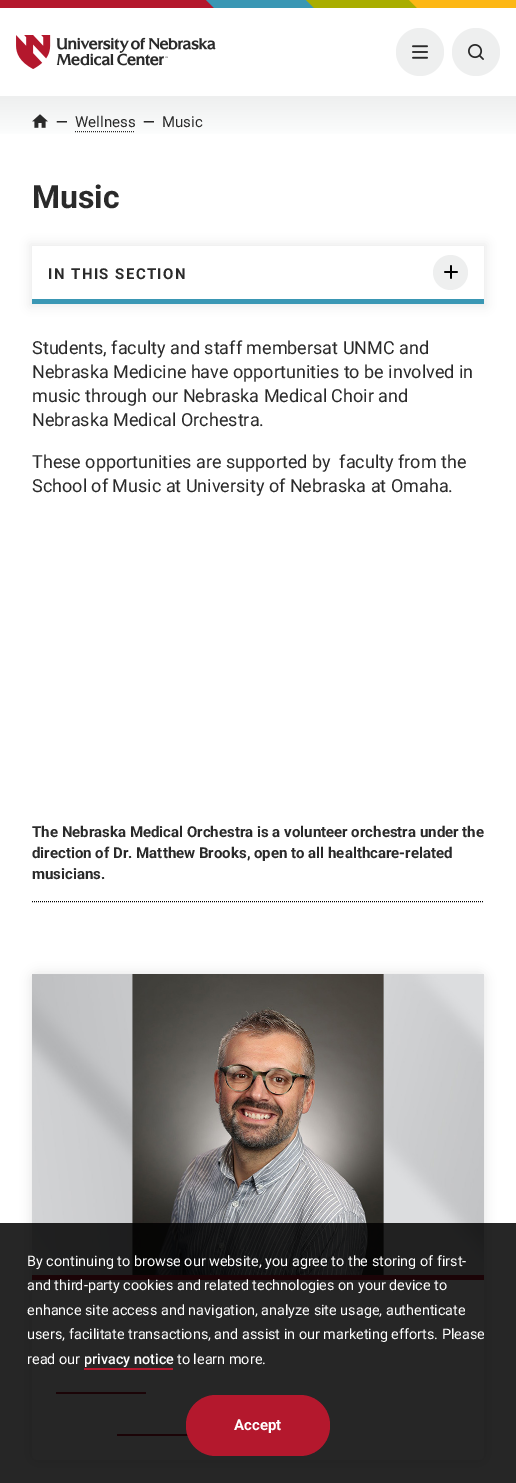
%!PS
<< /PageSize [516 1483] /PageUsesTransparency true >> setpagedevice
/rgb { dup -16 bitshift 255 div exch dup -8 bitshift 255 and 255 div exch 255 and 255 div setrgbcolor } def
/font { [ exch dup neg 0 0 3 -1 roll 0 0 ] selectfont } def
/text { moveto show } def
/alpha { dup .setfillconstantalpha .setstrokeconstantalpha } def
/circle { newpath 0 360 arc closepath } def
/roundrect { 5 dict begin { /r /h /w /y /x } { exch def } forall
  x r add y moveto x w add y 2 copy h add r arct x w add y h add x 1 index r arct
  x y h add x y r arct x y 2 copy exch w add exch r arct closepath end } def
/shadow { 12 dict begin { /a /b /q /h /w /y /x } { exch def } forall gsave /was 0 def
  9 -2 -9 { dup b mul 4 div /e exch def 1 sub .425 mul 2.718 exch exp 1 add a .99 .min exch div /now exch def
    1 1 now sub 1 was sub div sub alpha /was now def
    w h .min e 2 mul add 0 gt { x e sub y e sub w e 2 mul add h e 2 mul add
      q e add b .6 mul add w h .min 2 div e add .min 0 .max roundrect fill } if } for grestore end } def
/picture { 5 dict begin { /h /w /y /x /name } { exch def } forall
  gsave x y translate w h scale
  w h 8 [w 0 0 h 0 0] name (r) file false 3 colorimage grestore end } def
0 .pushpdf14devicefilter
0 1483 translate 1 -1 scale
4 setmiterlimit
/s1 { /Roboto-Bold 15 font 16#2A2A2A rgb } def
/s2 { /Roboto-Regular 15 font 16#2A2A2A rgb } def
/s3 { /Roboto-Bold 32 font 16#2A2A2A rgb } def
/s4 { /Roboto-Regular 18 font 16#2A2A2A rgb } def
/s5 { /Roboto-Regular 14.4 font 16#FFFFFF rgb } def
/s6 { /Roboto-Medium 14.4 font 16#FFFFFF rgb } def
/s7 { /Roboto-Bold 15 font 16#FFFFFF rgb } def
16#FFFFFF rgb
0 0 516 1483 rectfill
16#B4182D rgb
0 0 214 8 rectfill
16#3A97B4 rgb
206 0 moveto 214 8 lineto 516 8 lineto 516 0 lineto closepath fill
16#A9AD00 rgb
306 0 moveto 314 8 lineto 516 8 lineto 516 0 lineto closepath fill
16#FDB714 rgb
409 0 moveto 417 8 lineto 516 8 lineto 516 0 lineto closepath fill
(pic1.raw) 16 35 200 34 picture
16#EEEFEF rgb
420 52 24 circle fill
(pic2.raw) 412 45 16 14 picture
476 52 24 circle fill
(pic3.raw) 468 44 16 16 picture
gsave 0 96 moveto 516 96 lineto 516 134 lineto 0 134 lineto closepath clip newpath
<< /ShadingType 2 /ColorSpace /DeviceRGB /Coords [258 96 258 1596] /Extend [true true] /Function << /FunctionType 3 /Domain [0 1] /Functions [<< /FunctionType 2 /Domain [0 1] /C0 [0.933 0.937 0.937] /C1 [1 1 1] /N 1 >> << /FunctionType 2 /Domain [0 1] /C0 [1 1 1] /C1 [1 1 1] /N 1 >>] /Bounds [0.03] /Encode [0 1 0 1] >> >> shfill grestore
(pic4.raw) 32 114 16 14 picture
s1
(—) 56 127 text
s2
(Wellness) 75 127 text
[1 1] 0 setdash
75 131.5 moveto 135 131.5 lineto stroke
s1
(—) 143 127 text
s2
(Music) 162 127 text
s3
(Music) 32 208 text
gsave
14 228 moveto 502 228 lineto 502 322 lineto 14 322 lineto closepath 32 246 moveto 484 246 lineto 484 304 lineto 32 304 lineto closepath eoclip newpath
16#000000 rgb
30 244 456 62 0 5 0.08 shadow
grestore
/Roboto-Bold 15 font
48 279 moveto 1.4 0 (IN THIS SECTION) ashow
16#EEEFEF rgb
450.5 272.5 17.5 circle fill
(pic5.raw) 444 265 14 14 picture
16#3A97B4 rgb
32 299 452 5 rectfill
s4
(Students, faculty and staff membersat UNMC and) 32 354 text
(Nebraska Medicine have opportunities to be involved in) 32 378 text
(music through our Nebraska Medical Choir and) 32 402 text
(Nebraska Medical Orchestra.) 32 426 text
(These opportunities are supported by  faculty from the) 32 468 text
(School of Music at University of Nebraska at Omaha.) 32 492 text
16#000000 rgb
32 901.5 moveto 484 901.5 lineto stroke
s1
(The Nebraska Medical Orchestra is a volunteer orchestra under the) 32 837 text
(direction of Dr. Matthew Brooks, open to all healthcare-related) 32 858 text
(musicians.) 32 879 text
16#000000 rgb
30 972 456 490 8 5 0.08 shadow
16#FFFFFF rgb
32 974 moveto 484 974 lineto 484 1454 lineto 484 1457.5 481.5 1460 478 1460 curveto 38 1460 lineto 34.5 1460 32 1457.5 32 1454 curveto closepath fill
16#B4182D rgb
32 1275 452 5 rectfill
(pic6.raw) 32 974 452 301 picture
56 1392 90 2 rectfill
117 1434 71 2 rectfill
0.85 alpha
16#000000 rgb
0 1223 516 260 rectfill
1 alpha
s5
(By continuing to browse our website, you agree to the storing of first-) 27 1266 text
(and third-party cookies and related technologies on your device to) 27 1290 text
(enhance site access and navigation, analyze site usage, authenticate) 27 1315 text
(users, facilitate transactions, and assist in our marketing efforts. Please) 27 1339 text
(read our) 27 1364 text
s6
(privacy notice) 84 1364 text
16#B4182D rgb
84 1368 89 2 rectfill
s5
(to learn more.) 177 1364 text
16#B4182D rgb
186 1395 144 61 30 roundrect fill
s7
(Accept) 234 1430 text
.poppdf14devicefilter showpage
